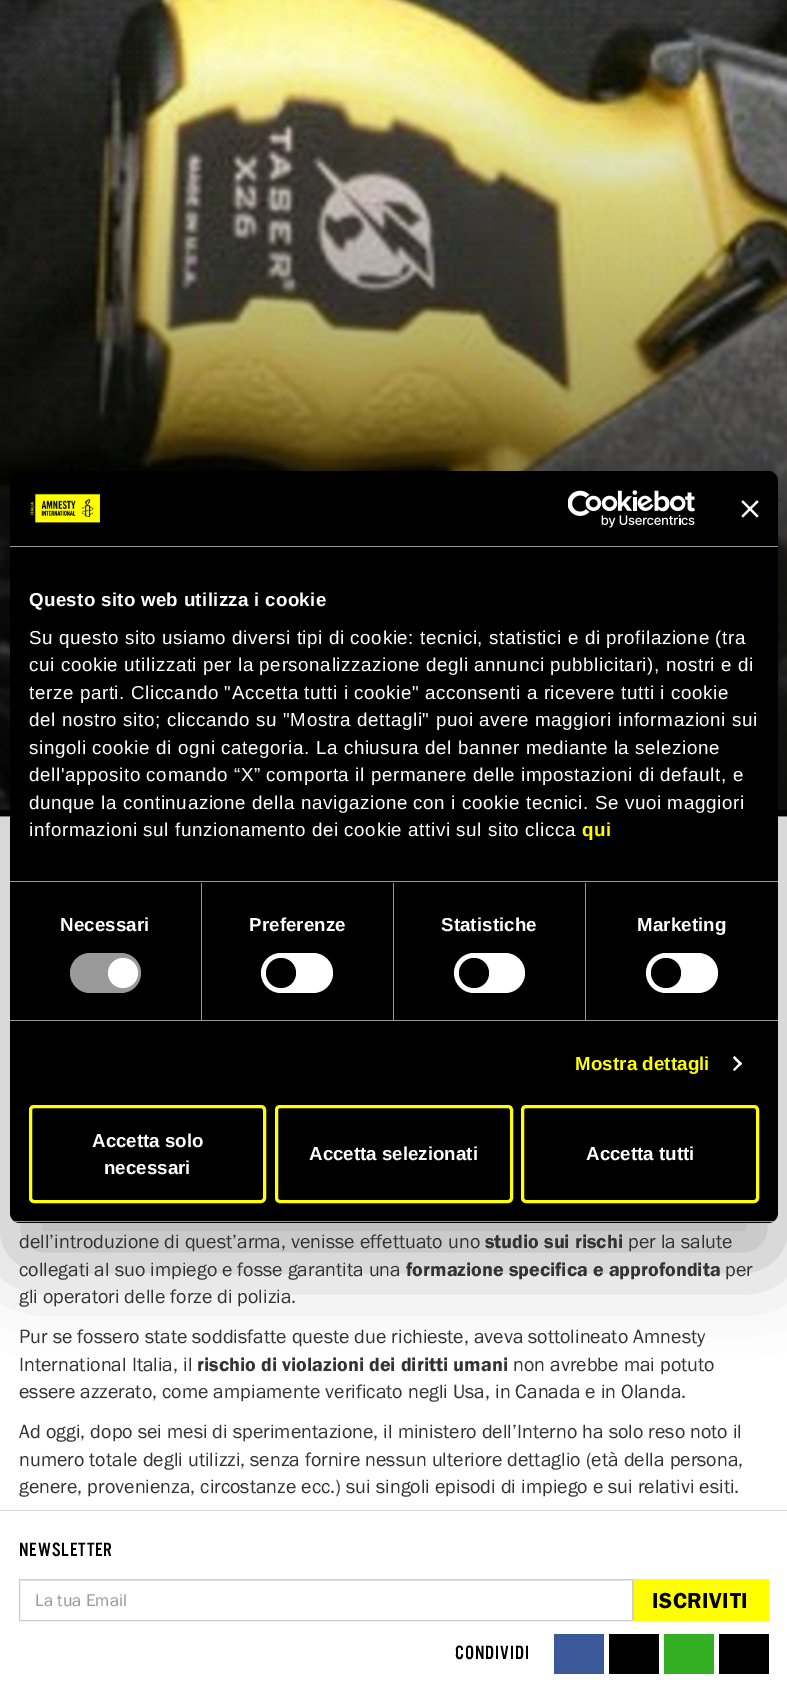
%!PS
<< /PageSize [787 1693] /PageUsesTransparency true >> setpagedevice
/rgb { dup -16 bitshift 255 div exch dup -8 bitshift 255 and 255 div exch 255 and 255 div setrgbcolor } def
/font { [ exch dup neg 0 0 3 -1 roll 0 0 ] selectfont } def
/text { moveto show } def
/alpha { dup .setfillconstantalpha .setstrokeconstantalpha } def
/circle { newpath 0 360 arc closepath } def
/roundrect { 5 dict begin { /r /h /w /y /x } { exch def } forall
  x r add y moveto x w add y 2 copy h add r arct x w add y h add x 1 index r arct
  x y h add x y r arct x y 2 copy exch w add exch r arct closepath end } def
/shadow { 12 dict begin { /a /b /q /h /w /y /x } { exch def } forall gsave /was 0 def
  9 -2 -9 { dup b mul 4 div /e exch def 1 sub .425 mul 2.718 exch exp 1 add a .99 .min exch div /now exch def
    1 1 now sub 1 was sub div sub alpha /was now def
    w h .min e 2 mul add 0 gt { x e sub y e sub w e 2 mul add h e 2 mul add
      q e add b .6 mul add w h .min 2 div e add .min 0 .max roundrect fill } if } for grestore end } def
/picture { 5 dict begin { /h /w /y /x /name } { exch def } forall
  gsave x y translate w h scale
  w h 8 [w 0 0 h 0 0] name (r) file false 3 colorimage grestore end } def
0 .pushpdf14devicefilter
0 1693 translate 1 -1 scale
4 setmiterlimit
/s1 { /LiberationSans-Bold 18.75 font 16#FFFFFF rgb } def
/s2 { /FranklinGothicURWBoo-Regular 20 font 16#333333 rgb } def
/s3 { /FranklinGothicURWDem-Regular 20 font 16#333333 rgb } def
/s4 { /FranklinGothicURWBoo-Regular 17.5 font 16#999999 rgb } def
16#FFFFFF rgb
0 0 787 1693 rectfill
(pic4.raw) 0 0 787 817 picture
16#000000 rgb
0 810 787 6 rectfill
10 511 768 752 10 42.5 0.3 shadow
10 471 768 752 10 roundrect fill
16#999999 rgb
10 546 768 1 rectfill
(pic1.raw) 30 493 70 30 picture
(pic2.raw) 568 490 127 38 picture
(pic3.raw) 741 500 18 18 picture
10 881 768 1 rectfill
/LiberationSans-Bold 18.75 font
16#FFFFFF rgb
29 606 moveto 0.3 0 (Questo sito web utilizza i cookie) ashow
/LiberationSans-Regular 18.75 font
29 644 moveto 0.62 0 (Su questo sito usiamo diversi tipi di cookie: tecnici, statistici e di profilazione \(tra) ashow
29 671 moveto 0.62 0 (cui cookie utilizzati per la personalizzazione degli annunci pubblicitari\), nostri e di) ashow
29 699 moveto 0.62 0 (terze parti. Cliccando "Accetta tutti i cookie" acconsenti a ricevere tutti i cookie) ashow
29 726 moveto 0.62 0 (del nostro sito; cliccando su "Mostra dettagli" puoi avere maggiori informazioni sui) ashow
29 754 moveto 0.62 0 (singoli cookie di ogni categoria. La chiusura del banner mediante la selezione) ashow
29 781 moveto 0.62 0 (dell'apposito comando “X” comporta il permanere delle impostazioni di default, e) ashow
29 809 moveto 0.62 0 (dunque la continuazione della navigazione con i cookie tecnici. Se vuoi maggiori) ashow
29 836 moveto 0.62 0 (informazioni sul funzionamento dei cookie attivi sul sito clicca) ashow
/LiberationSans-Bold 18.75 font
16#FFFF00 rgb
582 836 moveto 0.62 0 (qui) ashow
16#999999 rgb
10 1020 768 1 rectfill
201 883 1 137 rectfill
16#FFFFFF rgb
60 931 moveto 0.1 0 (Necessari) ashow
16#999999 rgb
70 953 71 40 20 roundrect fill
16#FFFFFF rgb
123 973 15 circle fill
16#999999 rgb
393 883 1 137 rectfill
16#FFFFFF rgb
249 931 moveto 0.1 0 (Preferenze) ashow
261 953 72 40 20 roundrect fill
16#000000 rgb
281 973 15 circle fill
16#999999 rgb
585 883 1 137 rectfill
16#FFFFFF rgb
441 931 moveto 0.1 0 (Statistiche) ashow
454 953 71 40 20 roundrect fill
16#000000 rgb
474 973 15 circle fill
16#FFFFFF rgb
637 931 moveto 0.1 0 (Marketing) ashow
646 953 72 40 20 roundrect fill
16#000000 rgb
666 973 15 circle fill
16#FFFF00 rgb
575 1070 moveto 0.1 0 (Mostra dettagli) ashow
16#FFFFFF rgb
734.5 1056 moveto 742 1063.5 lineto 740.5 1065.5 lineto 733 1058 lineto closepath fill
740.5 1062 moveto 742 1063.5 lineto 734.5 1071 lineto 733 1069.5 lineto closepath fill
gsave
10 471 768 752 10 roundrect clip newpath
16#999999 rgb
10 1221 768 1 rectfill
grestore
16#FFFF00 rgb
3 setlinewidth
30.5 1106.5 234 95 3.5 roundrect stroke
s1
(Accetta solo) 92 1147 text
(necessari) 104 1174 text
16#FFFF00 rgb
276.5 1106.5 235 95 3.5 roundrect stroke
s1
(Accetta selezionati) 309 1160 text
16#FFFF00 rgb
522.5 1106.5 235 95 3.5 roundrect stroke
s1
(Accetta tutti) 586 1160 text
s2
(dell’introduzione di quest’arma, venisse effettuato uno) 19 1248 text
s3
(studio sui rischi) 485 1248 text
s2
(per la salute) 628 1248 text
(collegati al suo impiego e fosse garantita una) 19 1276 text
s3
(formazione specifica e approfondita) 406 1276 text
s2
(per) 725 1276 text
(gli operatori delle forze di polizia.) 19 1303 text
(Pur se fossero state soddisfatte queste due richieste, aveva sottolineato Amnesty) 19 1343 text
(International Italia, il) 19 1371 text
s3
(rischio di violazioni dei diritti umani) 197 1371 text
s2
(non avrebbe mai potuto) 513 1371 text
(essere azzerato, come ampiamente verificato negli Usa, in Canada e in Olanda.) 19 1398 text
(Ad oggi, dopo sei mesi di sperimentazione, il ministero dell’Interno ha solo reso noto il) 19 1438 text
(numero totale degli utilizzi, senza fornire nessun ulteriore dettaglio \(età della persona,) 19 1466 text
(genere, provenienza, circostanze ecc.\) sui singoli episodi di impiego e sui relativi esiti.) 19 1493 text
16#D1D8DB rgb
0 1510 787 1 rectfill
/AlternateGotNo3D-Regular 20 font
16#000000 rgb
19 1556 moveto 1 0 (NEWSLETTER) ashow
16#ECECEC rgb
20 1580 611 1 rectfill
16#FFFF00 rgb
632 1579 moveto 769 1579 lineto 766 1581 lineto 634 1581 lineto closepath fill
766 1579 3 42 rectfill
769 1621 moveto 632 1621 lineto 634 1619 lineto 766 1619 lineto closepath fill
16#FFEB00 rgb
632 1621 moveto 632 1579 lineto 634 1581 lineto 634 1619 lineto closepath fill
16#CCCCCC rgb
1 setlinewidth
19.5 1579.5 613 41 rectstroke
s4
(La tua Email) 35 1606 text
16#FFFF00 rgb
634 1581 132 38 rectfill
/FranklinGothicURWDem-Regular 22.5 font
16#000000 rgb
652 1608 moveto 0.5 0 (ISCRIVITI) ashow
/AlternateGotNo3D-Regular 20 font
455 1659 moveto 1 0 (CONDIVIDI) ashow
16#3B5998 rgb
554 1634 50 40 rectfill
16#000000 rgb
609 1634 50 40 rectfill
16#34AF23 rgb
664 1634 50 40 rectfill
16#000000 rgb
719 1634 50 40 rectfill
.poppdf14devicefilter showpage
